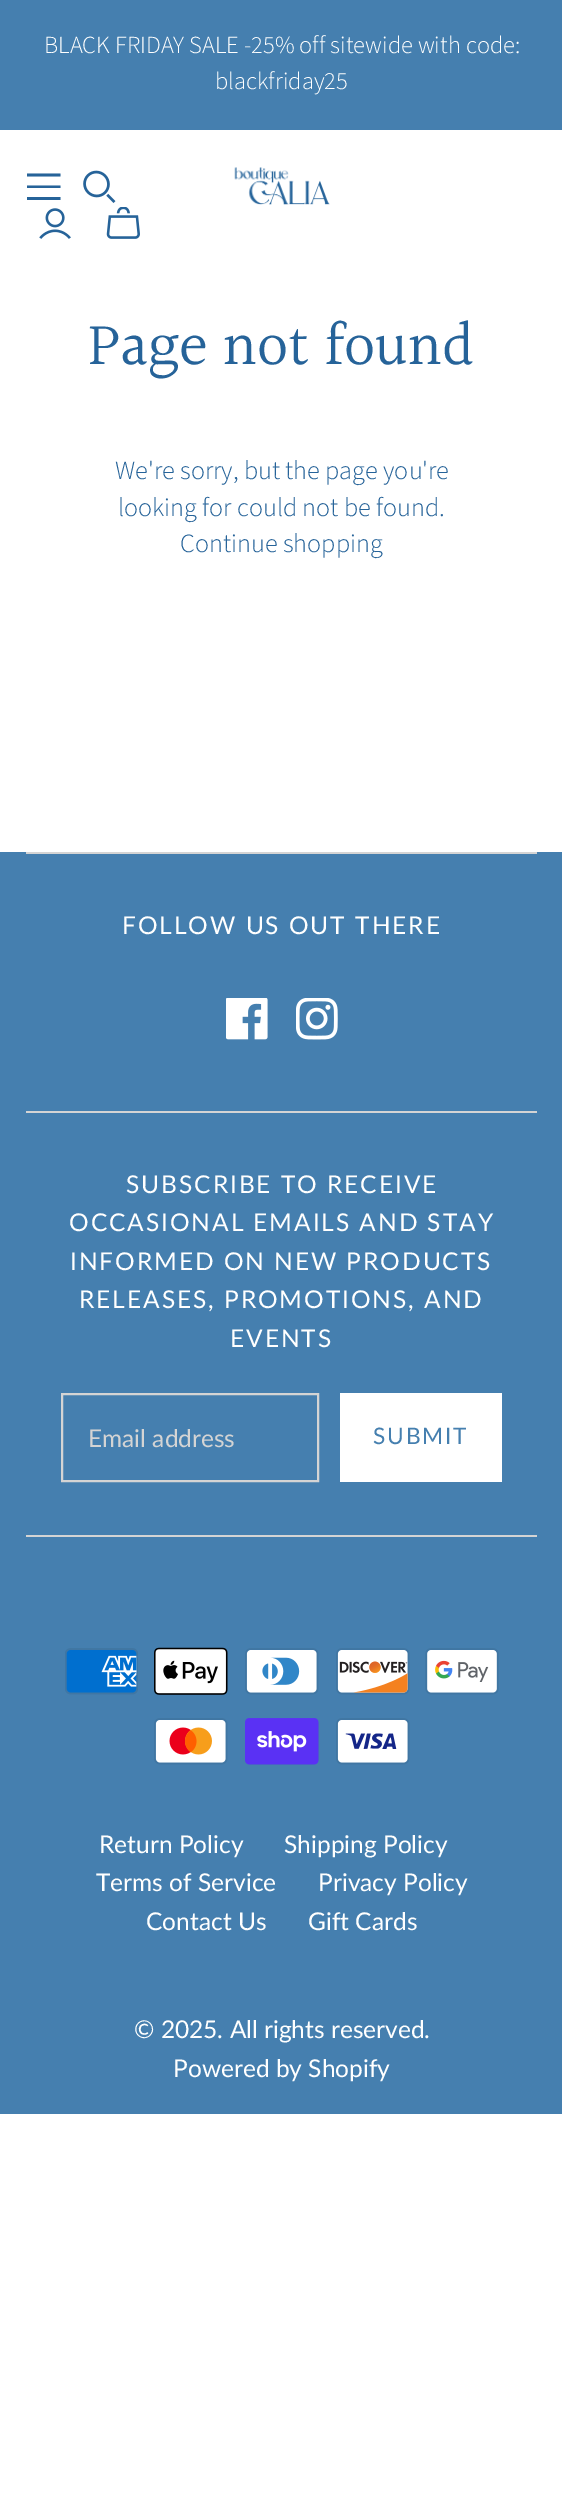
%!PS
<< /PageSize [562 2512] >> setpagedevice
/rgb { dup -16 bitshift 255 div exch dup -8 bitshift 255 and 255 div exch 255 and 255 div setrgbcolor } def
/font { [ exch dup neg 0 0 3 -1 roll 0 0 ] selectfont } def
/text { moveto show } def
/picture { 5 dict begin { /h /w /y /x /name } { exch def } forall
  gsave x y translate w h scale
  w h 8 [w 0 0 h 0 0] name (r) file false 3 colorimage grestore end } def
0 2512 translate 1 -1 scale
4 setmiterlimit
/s1 { /SourceSansPro-Light 24.5 font 16#FFFFFF rgb } def
/s2 { /Halant-Regular 61.25 font 16#266399 rgb } def
/s3 { /SourceSansPro-Light 26.25 font 16#266399 rgb } def
/s4 { /Lato-Regular 24.5 font 16#D4D4D4 rgb } def
/s5 { /Lato-Regular 24.5 font 16#FFFFFF rgb } def
16#FFFFFF rgb
0 0 562 2512 rectfill
16#457FAF rgb
0 0 562 130 rectfill
s1
(BLACK FRIDAY SALE -25% off sitewide with code:) 44 53 text
(blackfriday25) 215 89 text
16#266399 rgb
60.5 176.5 moveto 27 176.5 lineto 27 173.5 lineto 60.5 173.5 lineto closepath 60.5 188 moveto 27 188 lineto 27 185.5 lineto 60.5 185.5 lineto closepath 27 200 moveto 60.5 200 lineto 60.5 197 lineto 27 197 lineto closepath eofill
(pic1.raw) 83 170 33 33 picture
(pic2.raw) 39 208 32 31 picture
(pic3.raw) 106 207 34 32 picture
(pic4.raw) 234 167 96 38 picture
s2
(Page not found) 88 367 text
s3
(We're sorry, but the page you're) 115 479 text
(looking for could not be found.) 118 516 text
(Continue shopping) 180 552 text
16#457FAF rgb
0 852 562 1262 rectfill
16#D4D4D4 rgb
26 852 511 2 rectfill
26 1535 511 2 rectfill
/Lato-Regular 24.5 font
16#FFFFFF rgb
122 934 moveto 1.95 0 (FOLLOW US OUT THERE) ashow
(pic5.raw) 226 998 42 42 picture
(pic6.raw) 296 998 42 42 picture
16#D4D4D4 rgb
26 1111 511 2 rectfill
16#FFFFFF rgb
126 1193 moveto 1.95 0 (SUBSCRIBE TO RECEIVE) ashow
69 1231 moveto 1.95 0 (OCCASIONAL EMAILS AND STAY) ashow
70 1270 moveto 1.95 0 (INFORMED ON NEW PRODUCTS) ashow
79 1308 moveto 1.95 0 (RELEASES, PROMOTIONS, AND) ashow
230 1347 moveto 1.95 0 (EVENTS) ashow
16#D4D4D4 rgb
2 setlinewidth
62 1394 256 87 rectstroke
(Email address) 88 1447 text
16#FFFFFF rgb
340 1393 162 89 rectfill
/Lato-Regular 22.75 font
16#457FAF rgb
373 1444 moveto 1.75 0 (SUBMIT) ashow
(pic7.raw) 65 1648 73 47 picture
(pic8.raw) 154 1647 74 48 picture
(pic9.raw) 245 1648 74 47 picture
(pic10.raw) 336 1648 74 47 picture
(pic11.raw) 425 1648 74 47 picture
(pic12.raw) 154 1718 74 47 picture
(pic13.raw) 245 1718 74 47 picture
(pic14.raw) 336 1718 74 47 picture
s5
(Return Policy) 99 1853 text
(Shipping Policy) 284 1853 text
(Terms of Service) 96 1891 text
(Privacy Policy) 318 1891 text
(Contact Us) 146 1930 text
(Gift Cards) 308 1930 text
(© 2025. All rights reserved.) 134 2038 text
(Powered by Shopify) 173 2077 text
showpage
